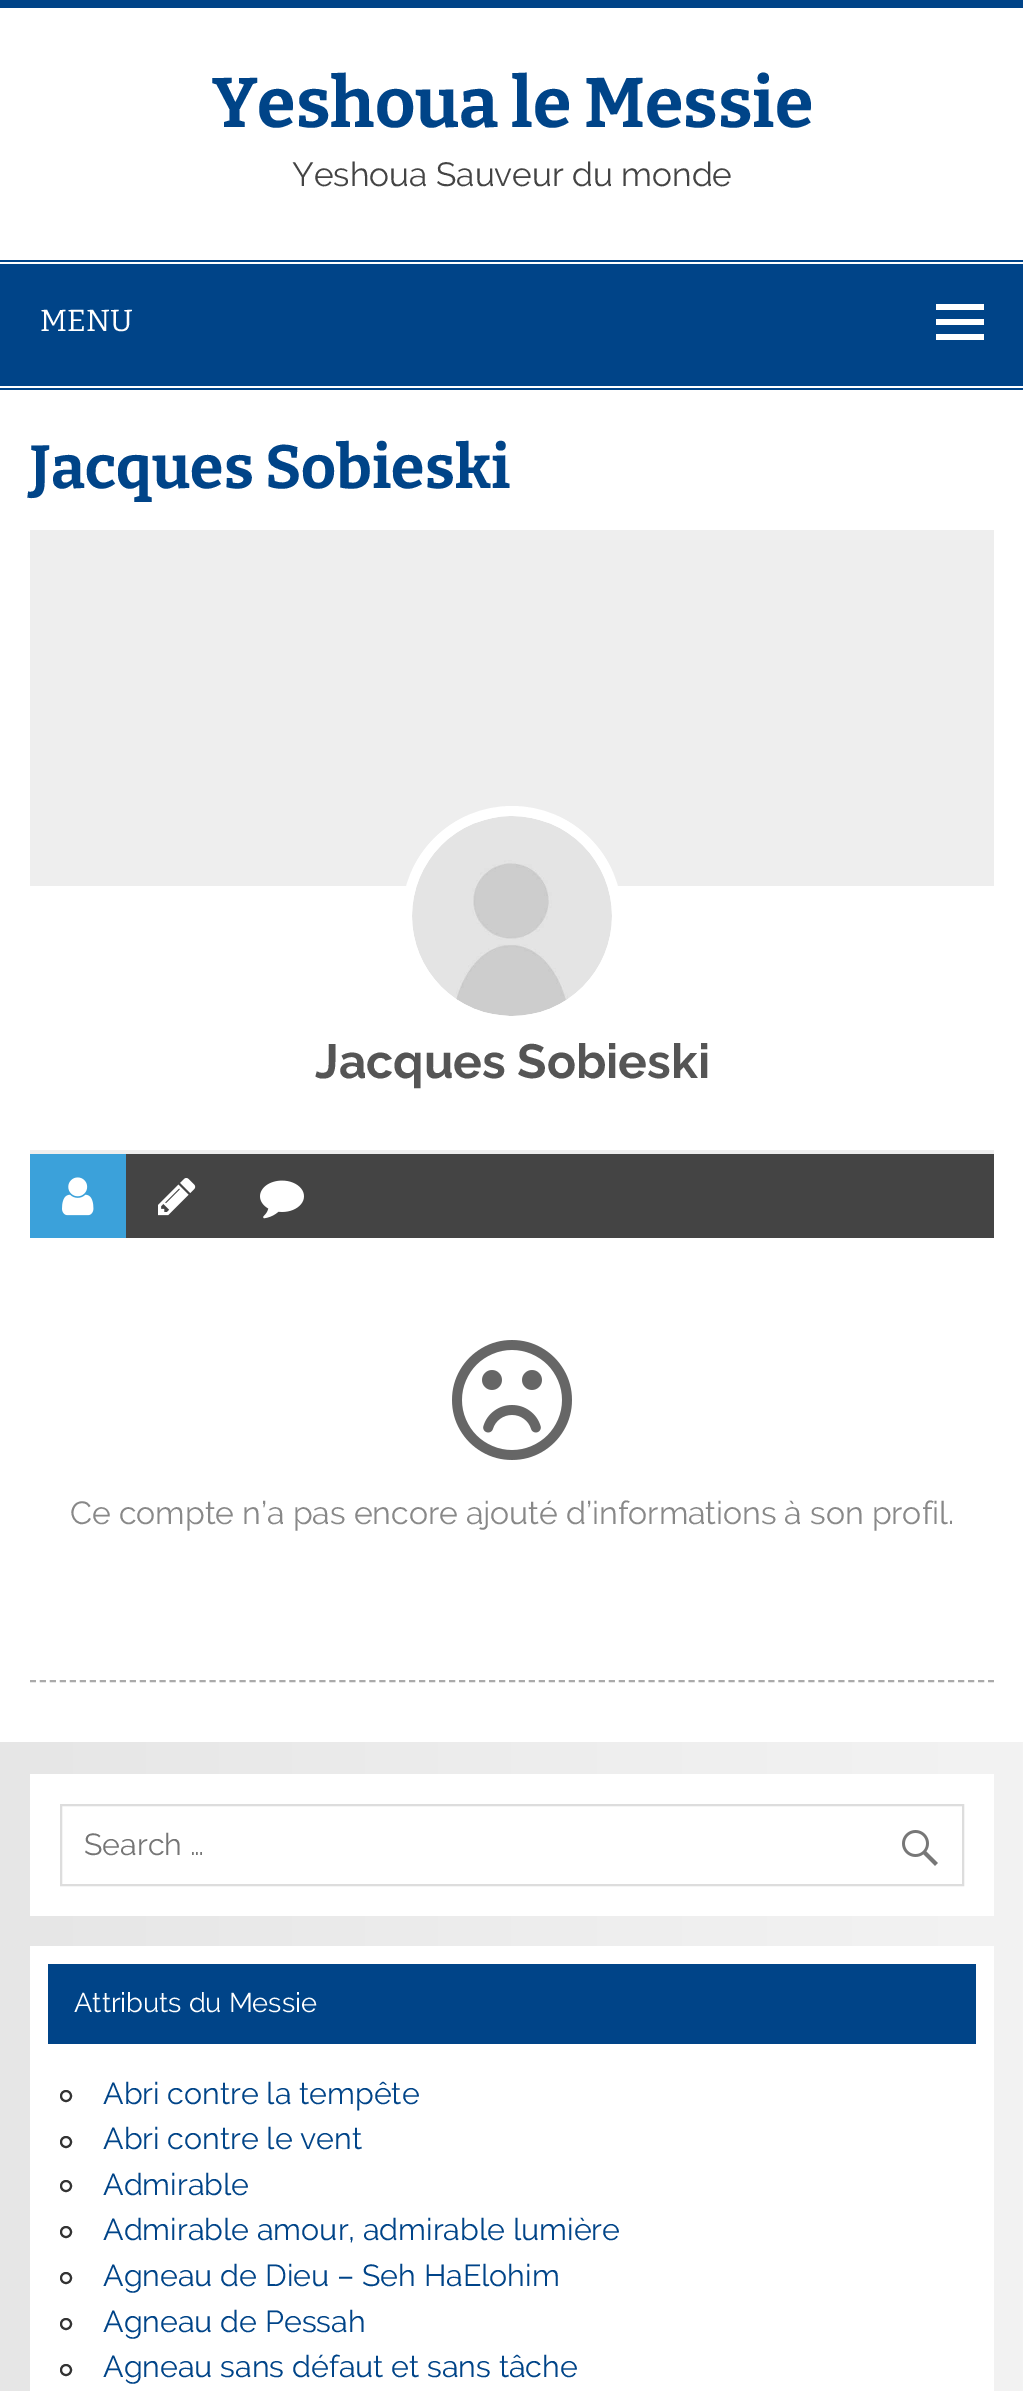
%!PS
<< /PageSize [1023 2391] >> setpagedevice
/rgb { dup -16 bitshift 255 div exch dup -8 bitshift 255 and 255 div exch 255 and 255 div setrgbcolor } def
/font { [ exch dup neg 0 0 3 -1 roll 0 0 ] selectfont } def
/text { moveto show } def
/circle { newpath 0 360 arc closepath } def
/picture { 5 dict begin { /h /w /y /x /name } { exch def } forall
  gsave x y translate w h scale
  w h 8 [w 0 0 h 0 0] name (r) file false 3 colorimage grestore end } def
0 2391 translate 1 -1 scale
4 setmiterlimit
/s1 { /Bitter-Bold 70 font 16#004488 rgb } def
/s2 { /Raleway-Regular 33.5 font 16#444444 rgb } def
/s3 { /Bitter-Regular 30.4 font 16#FFFFFF rgb } def
/s4 { /Bitter-Bold 60.75 font 16#004488 rgb } def
/s5 { /Raleway-Bold 48 font 16#555555 rgb } def
/s6 { /Raleway-Regular 32 font 16#888888 rgb } def
/s7 { /Raleway-Regular 30.4 font 16#757575 rgb } def
/s8 { /Raleway-Regular 27.25 font 16#FFFFFF rgb } def
/s9 { /Raleway-Regular 30.4 font 16#004488 rgb } def
16#FFFFFF rgb
0 0 1023 2391 rectfill
16#004488 rgb
0 0 1023 8 rectfill
s1
(Yeshoua le Messie) 212 127 text
s2
(Yeshoua Sauveur du monde) 292 186 text
16#004488 rgb
0 260 1023 2 rectfill
0 388 1023 2 rectfill
0 264 1023 122 rectfill
s3
(MENU) 40 331 text
936 340 moveto 936 334 lineto 984 334 lineto 984 340 lineto closepath 936 304 moveto 984 304 lineto 984 310 lineto 936 310 lineto closepath 936 325 moveto 936 319 lineto 984 319 lineto 984 325 lineto closepath fill
16#AAAAAA rgb
2 setlinewidth
[6 3.98] 0 setdash
30 1681 moveto 994 1681 lineto stroke
s4
(Jacques Sobieski) 30 488 text
16#EEEEEE rgb
30 530 964 356 rectfill
30 1150 964 4 rectfill
16#FFFFFF rgb
512 916 105 circle gsave fill grestore
10 setlinewidth
[] 0 setdash
stroke
(pic1.raw) 412 816 200 200 picture
s5
(Jacques Sobieski) 315 1078 text
16#444444 rgb
126 1154 868 84 rectfill
16#3BA1DA rgb
30 1154 96 84 rectfill
(pic2.raw) 62 1177 32 39 picture
(pic3.raw) 158 1178 38 38 picture
(pic4.raw) 260 1180 44 39 picture
(pic5.raw) 452 1340 120 120 picture
s6
(Ce compte n’a pas encore ajouté d’informations à son profil.) 70 1524 text
gsave 0 1742 moveto 1023 1742 lineto 1023 2391 lineto 0 2391 lineto closepath clip newpath
<< /ShadingType 2 /ColorSpace /DeviceRGB /Coords [0 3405 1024 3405] /Extend [true true] /Function << /FunctionType 2 /Domain [0 1] /C0 [0.902 0.902 0.902] /C1 [0.953 0.953 0.953] /N 1 >> >> shfill grestore
16#FFFFFF rgb
30 1774 964 142 rectfill
16#DDDDDD rgb
2 setlinewidth
61 1805 902 80 rectstroke
s7
(Search …) 84 1855 text
(pic6.raw) 902 1830 36 36 picture
16#FFFFFF rgb
30 1946 964 445 rectfill
16#004488 rgb
48 1964 928 80 rectfill
s8
(Attributs du Messie) 74 2012 text
16#333333 rgb
66 2096 5 circle stroke
s9
(Abri contre la tempête) 103 2104 text
16#333333 rgb
66 2142 5 circle stroke
s9
(Abri contre le vent) 103 2149 text
16#333333 rgb
66 2186 5 circle stroke
s9
(Admirable) 103 2195 text
16#333333 rgb
66 2232 5 circle stroke
s9
(Admirable amour, admirable lumière) 103 2240 text
16#333333 rgb
66 2278 5 circle stroke
s9
(Agneau de Dieu – Seh HaElohim) 103 2286 text
16#333333 rgb
66 2324 5 circle stroke
s9
(Agneau de Pessah) 103 2332 text
16#333333 rgb
66 2370 5 circle stroke
s9
(Agneau sans défaut et sans tâche) 103 2377 text
showpage
